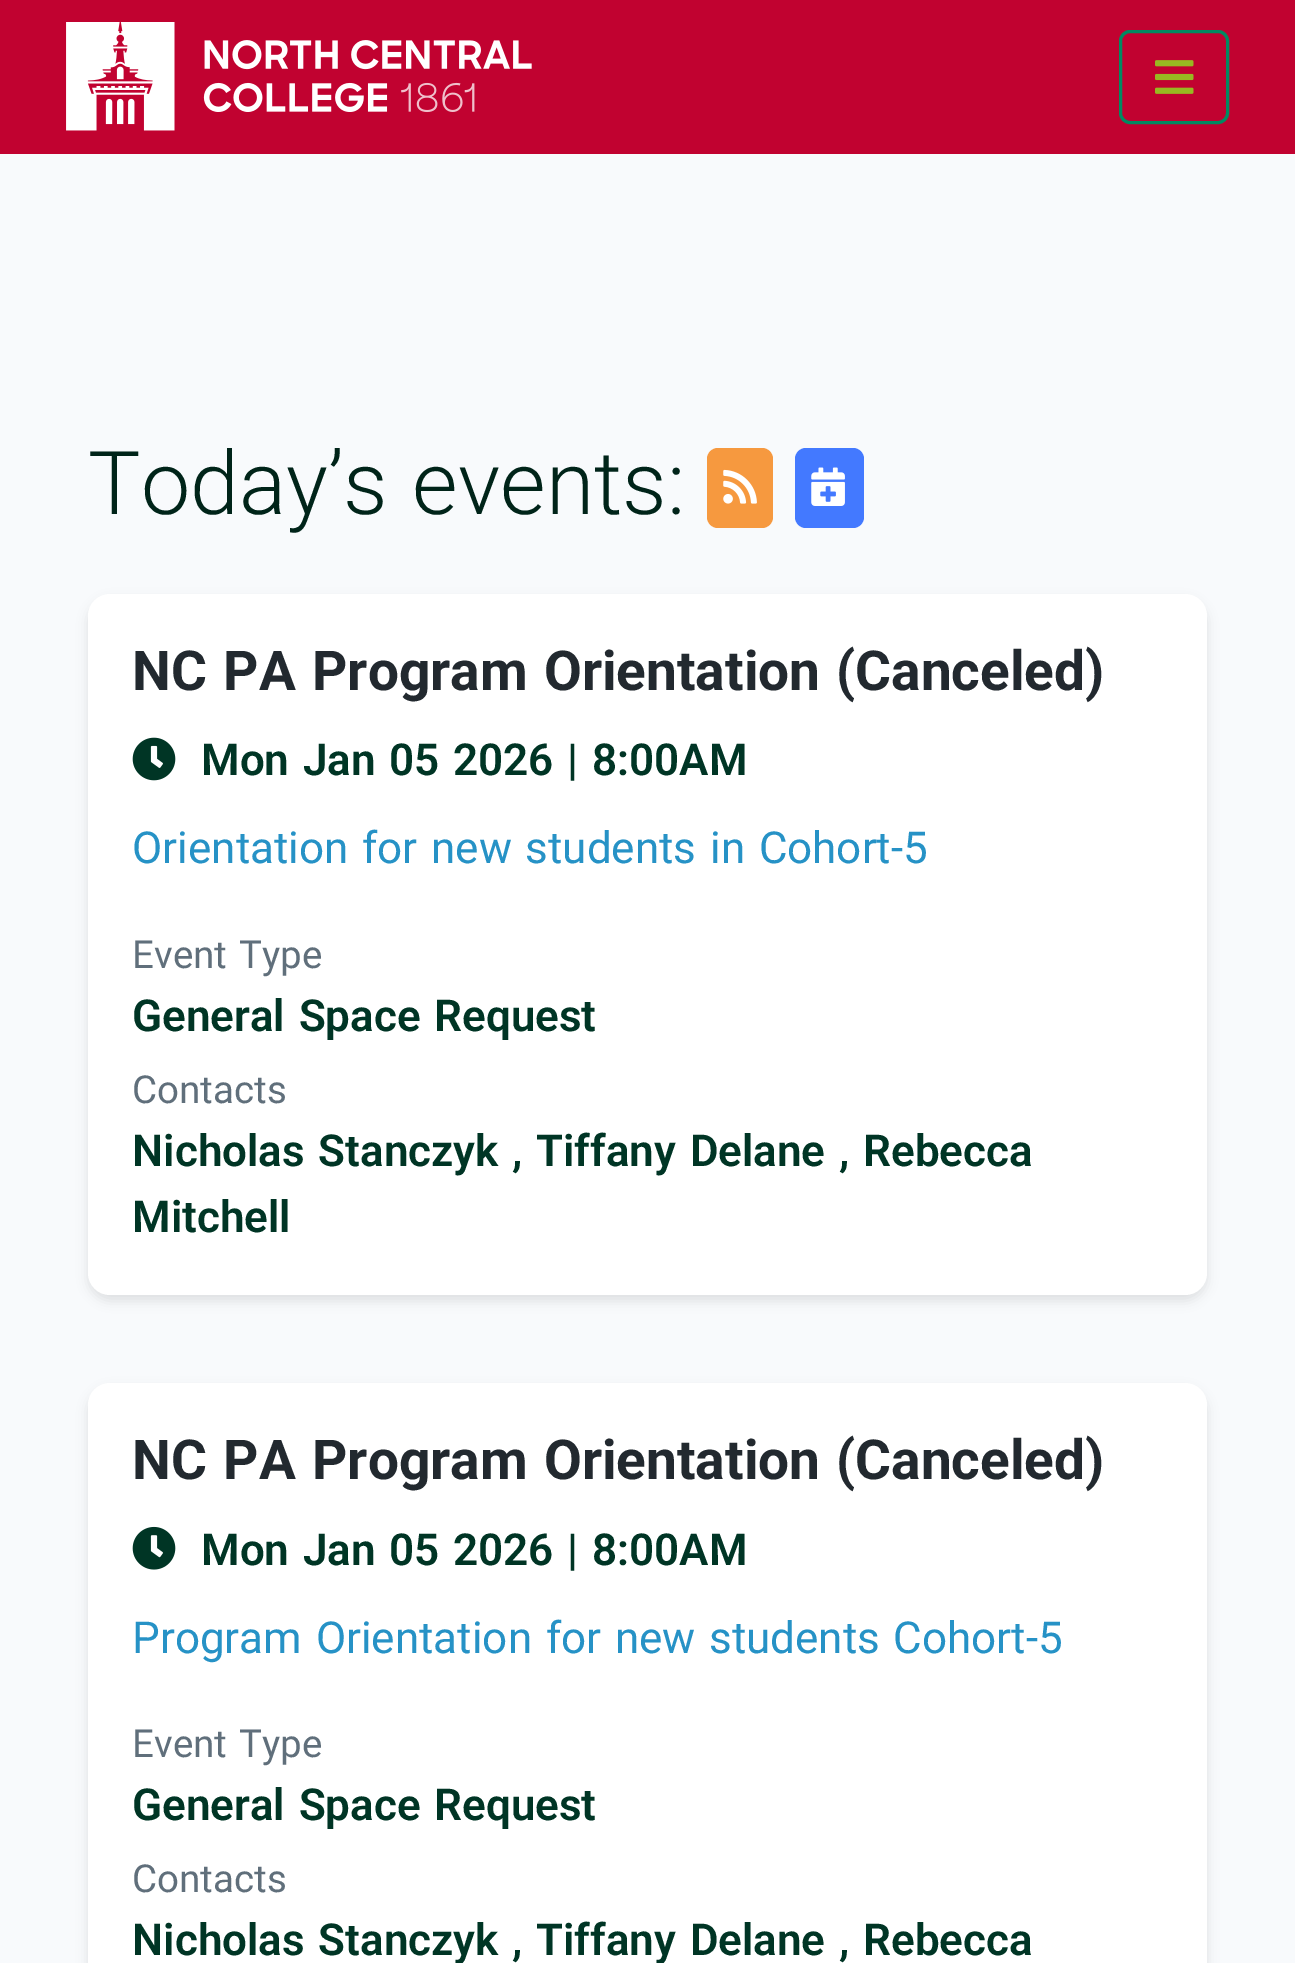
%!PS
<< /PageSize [1295 1963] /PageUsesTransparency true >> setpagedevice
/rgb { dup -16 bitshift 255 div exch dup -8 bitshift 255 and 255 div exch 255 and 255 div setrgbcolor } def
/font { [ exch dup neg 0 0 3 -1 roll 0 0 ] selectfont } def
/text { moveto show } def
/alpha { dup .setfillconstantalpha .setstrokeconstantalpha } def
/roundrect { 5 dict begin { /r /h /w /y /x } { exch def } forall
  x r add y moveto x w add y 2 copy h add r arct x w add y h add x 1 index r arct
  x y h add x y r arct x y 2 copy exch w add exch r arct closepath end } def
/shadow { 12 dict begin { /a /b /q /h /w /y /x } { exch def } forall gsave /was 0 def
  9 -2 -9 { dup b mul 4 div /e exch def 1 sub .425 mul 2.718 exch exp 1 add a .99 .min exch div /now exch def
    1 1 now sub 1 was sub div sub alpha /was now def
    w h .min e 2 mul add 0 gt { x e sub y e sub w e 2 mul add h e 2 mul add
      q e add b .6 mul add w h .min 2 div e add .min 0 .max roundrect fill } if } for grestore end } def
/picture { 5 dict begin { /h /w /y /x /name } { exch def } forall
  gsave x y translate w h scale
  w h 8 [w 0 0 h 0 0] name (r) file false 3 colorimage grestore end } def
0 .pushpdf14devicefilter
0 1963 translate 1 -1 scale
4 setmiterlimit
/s1 { /Roboto-Bold 55 font 16#22292F rgb } def
/s2 { /Roboto-SemiBold 44 font 16#003525 rgb } def
/s3 { /Roboto-Regular 38.5 font 16#606F7B rgb } def
16#F8FAFC rgb
0 0 1295 1963 rectfill
16#C10230 rgb
0 0 1295 154 rectfill
(pic1.raw) 66 22 466 109 picture
16#008A61 rgb
3 setlinewidth
1120.5 31.5 107 91 9.5 roundrect stroke
(pic2.raw) 1155 60 39 34 picture
/Roboto-Light 88 font
16#002419 rgb
88 514 moveto 2.75 0 32 (Today’s events:) widthshow
16#F6993F rgb
707 448 66 80 11 roundrect fill
(pic3.raw) 723 469 34 35 picture
16#4379FF rgb
795 448 69 80 11 roundrect fill
(pic4.raw) 811 467 34 39 picture
16#000000 rgb
88 600 1119 701 22 5.5 0.1 shadow
16#FFFFFF rgb
88 594 1119 701 22 roundrect fill
/Roboto-Bold 55 font
16#22292F rgb
132 690 moveto 2.75 0 32 (NC PA Program Orientation) widthshow
(\(Canceled\)) 836 690 text
(pic5.raw) 132 737 44 44 picture
/Roboto-SemiBold 44 font
16#003525 rgb
201 775 moveto 2.75 0 32 (Mon Jan 05 2026) widthshow
(|) 567 775 text
(8:00AM) 592 775 text
/Roboto-Regular 44 font
16#2692C6 rgb
132 863 moveto 2.75 0 32 (Orientation for new students in Cohort-5) widthshow
/Roboto-Regular 38.5 font
16#606F7B rgb
132 968 moveto 2.75 0 32 (Event Type) widthshow
/Roboto-SemiBold 44 font
16#003525 rgb
132 1031 moveto 2.75 0 32 (General Space Request) widthshow
s3
(Contacts) 132 1103 text
/Roboto-SemiBold 44 font
16#003525 rgb
132 1166 moveto 2.75 0 32 (Nicholas Stanczyk) widthshow
(,) 512 1166 text
536 1166 moveto 2.75 0 32 (Tiffany Delane) widthshow
(,) 839 1166 text
(Rebecca) 863 1166 text
(Mitchell) 132 1232 text
16#000000 rgb
88 1389 1119 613 22 5.5 0.1 shadow
16#FFFFFF rgb
88 1383 1119 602 22 roundrect fill
/Roboto-Bold 55 font
16#22292F rgb
132 1479 moveto 2.75 0 32 (NC PA Program Orientation) widthshow
(\(Canceled\)) 836 1479 text
(pic6.raw) 132 1526 44 44 picture
/Roboto-SemiBold 44 font
16#003525 rgb
201 1565 moveto 2.75 0 32 (Mon Jan 05 2026) widthshow
(|) 567 1565 text
(8:00AM) 592 1565 text
/Roboto-Regular 44 font
16#2692C6 rgb
132 1653 moveto 2.75 0 32 (Program Orientation for new students Cohort-5) widthshow
/Roboto-Regular 38.5 font
16#606F7B rgb
132 1757 moveto 2.75 0 32 (Event Type) widthshow
/Roboto-SemiBold 44 font
16#003525 rgb
132 1820 moveto 2.75 0 32 (General Space Request) widthshow
s3
(Contacts) 132 1892 text
/Roboto-SemiBold 44 font
16#003525 rgb
132 1955 moveto 2.75 0 32 (Nicholas Stanczyk) widthshow
(,) 512 1955 text
536 1955 moveto 2.75 0 32 (Tiffany Delane) widthshow
(,) 839 1955 text
(Rebecca) 863 1955 text
.poppdf14devicefilter showpage
